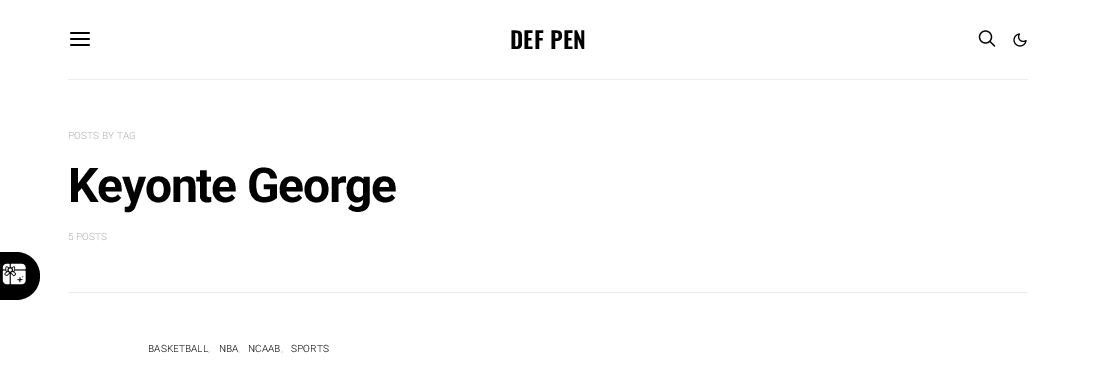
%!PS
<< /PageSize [1096 379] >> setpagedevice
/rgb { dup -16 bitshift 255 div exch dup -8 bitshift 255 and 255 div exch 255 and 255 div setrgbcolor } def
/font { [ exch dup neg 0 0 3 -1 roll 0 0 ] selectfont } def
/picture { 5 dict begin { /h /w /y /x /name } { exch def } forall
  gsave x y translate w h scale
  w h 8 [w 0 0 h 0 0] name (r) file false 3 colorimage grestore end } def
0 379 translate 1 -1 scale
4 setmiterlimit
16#FFFFFF rgb
0 0 1096 379 rectfill
16#000000 rgb
-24 252 moveto 16 252 lineto 29.5 252 40 262.5 40 276 curveto 40 289.5 29.5 300 16 300 curveto -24 300 lineto closepath fill
(pic1.raw) 2 263 24 22 picture
16#EDEDED rgb
68 79 960 1 rectfill
(pic2.raw) 70 32 20 14 picture
/Oswald-SemiBold 23 font
16#000000 rgb
510 49 moveto 0.25 0 (DEF PEN) ashow
(pic3.raw) 978 30 18 17 picture
(pic4.raw) 1013 33 14 14 picture
/Roboto-Light 10 font
16#AFAFAF rgb
68 139 moveto 0.1 0 (POSTS BY TAG) ashow
/Roboto-Bold 48 font
16#000000 rgb
68 202 moveto -1.25 0 (Keyonte George) ashow
/Roboto-Light 10 font
16#AFAFAF rgb
68 240 moveto 0.1 0 (5 POSTS) ashow
16#E9ECEF rgb
68 292 960 1 rectfill
16#000000 rgb
148 352 moveto 0.1 0 (BASKETBALL) ashow
16#AFAFAF rgb
208 352 moveto 0.1 0 (,) ashow
16#000000 rgb
219 352 moveto 0.1 0 (NBA) ashow
16#AFAFAF rgb
238 352 moveto 0.1 0 (,) ashow
16#000000 rgb
248 352 moveto 0.1 0 (NCAAB) ashow
16#AFAFAF rgb
281 352 moveto 0.1 0 (,) ashow
16#000000 rgb
291 352 moveto 0.1 0 (SPORTS) ashow
showpage
